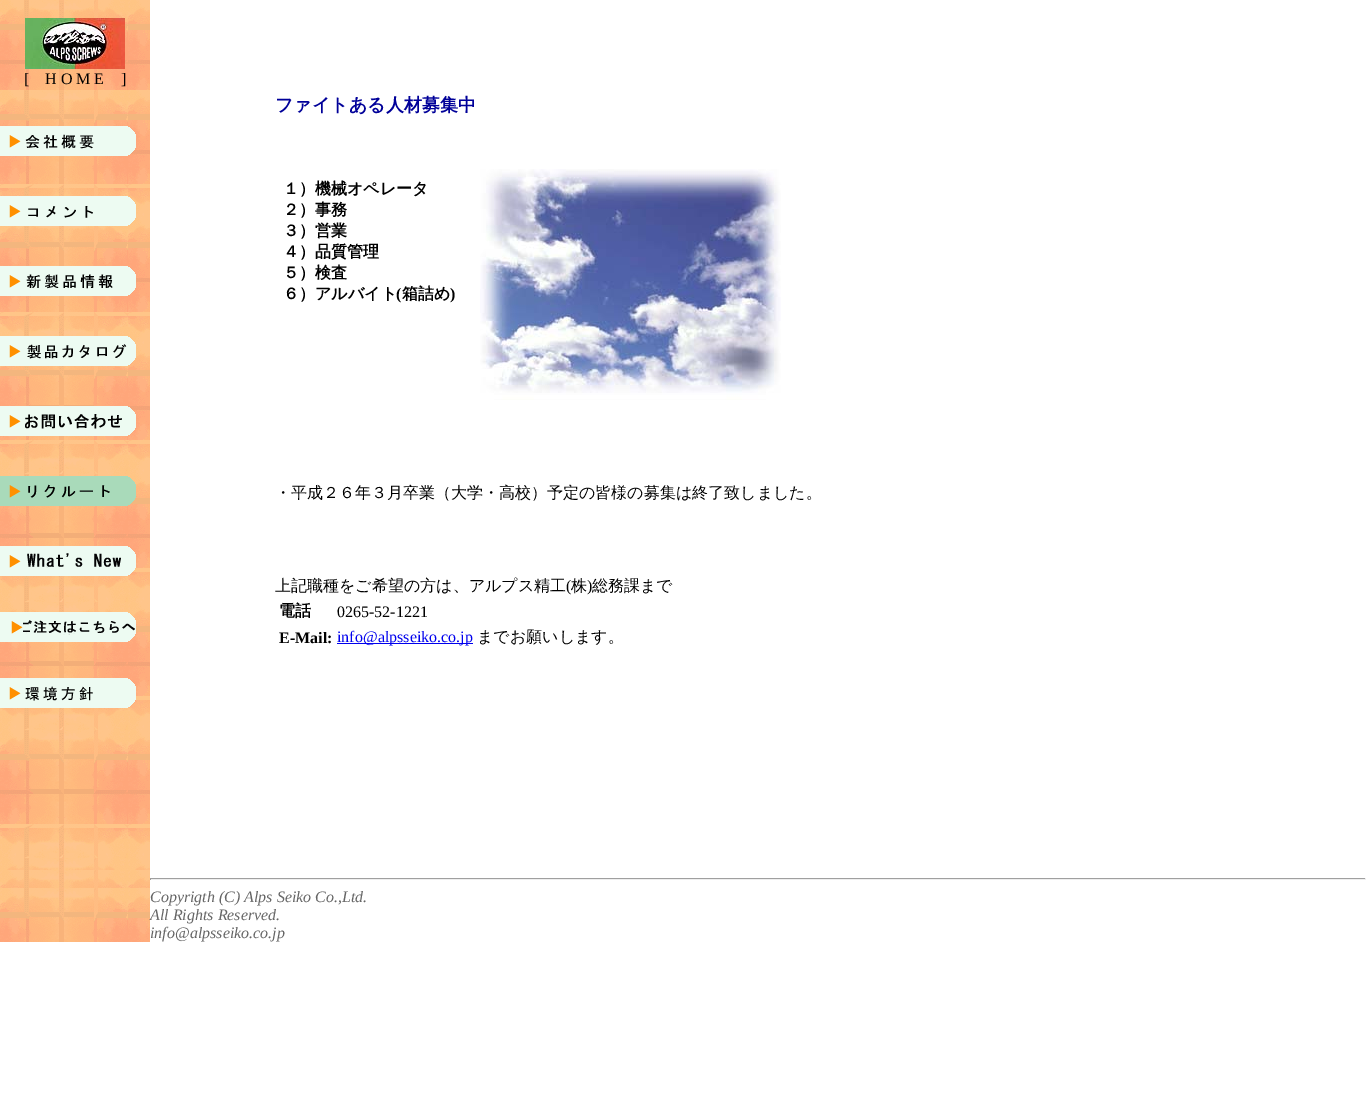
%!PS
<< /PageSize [1366 1116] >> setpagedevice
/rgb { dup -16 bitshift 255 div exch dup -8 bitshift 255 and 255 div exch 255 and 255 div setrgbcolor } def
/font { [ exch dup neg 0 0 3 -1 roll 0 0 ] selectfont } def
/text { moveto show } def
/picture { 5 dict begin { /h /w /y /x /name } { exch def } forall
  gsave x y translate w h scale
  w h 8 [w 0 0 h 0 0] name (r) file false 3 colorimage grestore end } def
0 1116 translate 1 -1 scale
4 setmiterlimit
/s1 { /LiberationSerif-Regular 16 font 16#000000 rgb } def
/s2 { /WenQuanYiZenHei-Bold 18 font 16#000099 rgb } def
/s3 { /WenQuanYiZenHei-Bold 16 font 16#000000 rgb } def
/s4 { /LiberationSerif-Bold 16 font 16#000000 rgb } def
/s5 { /WenQuanYiZenHei-Medium 16 font 16#000000 rgb } def
/s6 { /LiberationSerif-Regular 16 font 16#0000EE rgb } def
/s7 { /LiberationSerif-Italic 16 font 16#666666 rgb } def
16#FFFFFF rgb
0 0 1366 1116 rectfill
(pic1.raw) 0 0 150 90 picture
(pic2.raw) 25 18 100 51 picture
s1
([) 24 84 text
(H O M E) 45 84 text
(]) 121 84 text
(pic3.raw) 0 90 150 780 picture
(pic4.raw) 0 126 136 30 picture
(pic5.raw) 0 196 136 30 picture
(pic6.raw) 0 266 136 30 picture
(pic7.raw) 0 336 136 30 picture
(pic8.raw) 0 406 136 30 picture
(pic9.raw) 0 476 136 30 picture
(pic10.raw) 0 546 136 30 picture
(pic11.raw) 0 612 136 30 picture
(pic12.raw) 0 678 136 30 picture
s2
(ファイトある人材募集中) 275 111 text
s3
(１）機械オペレータ) 283 194 text
(２）事務) 283 215 text
(３）営業) 283 236 text
(４）品質管理) 283 257 text
(５）検査) 283 278 text
(６）アルバイト) 283 299 text
s4
(\() 396 299 text
s3
(箱詰め) 402 299 text
s4
(\)) 450 299 text
(pic13.raw) 480 169 301 231 picture
s5
(・平成２６年３月卒業（大学・高校）予定の皆様の募集は終了致しました。) 275 498 text
(上記職種をご希望の方は、アルプス精工) 275 591 text
s1
(\() 566 591 text
s5
(株) 571 591 text
s1
(\)) 587 591 text
s5
(総務課まで) 592 591 text
s3
(電話) 279 616 text
s1
(0265-52-1221) 337 617 text
s4
(E-Mail:) 279 643 text
16#0000EE rgb
337 643 136 1 rectfill
s6
(info@alpsseiko.co.jp) 337 642 text
s5
(までお願いします。) 477 642 text
(pic14.raw) 0 870 150 18 picture
16#9F9F9F rgb
150 878 1216 1 rectfill
16#EEEEEE rgb
1365 878 1 2 rectfill
150 879 1216 1 rectfill
16#9F9F9F rgb
150 878 1 2 rectfill
(pic15.raw) 0 888 150 54 picture
s7
(Copyrigth \(C\) Alps Seiko Co.,Ltd.) 150 902 text
(All Rights Reserved.) 150 920 text
(info@alpsseiko.co.jp) 150 938 text
showpage
